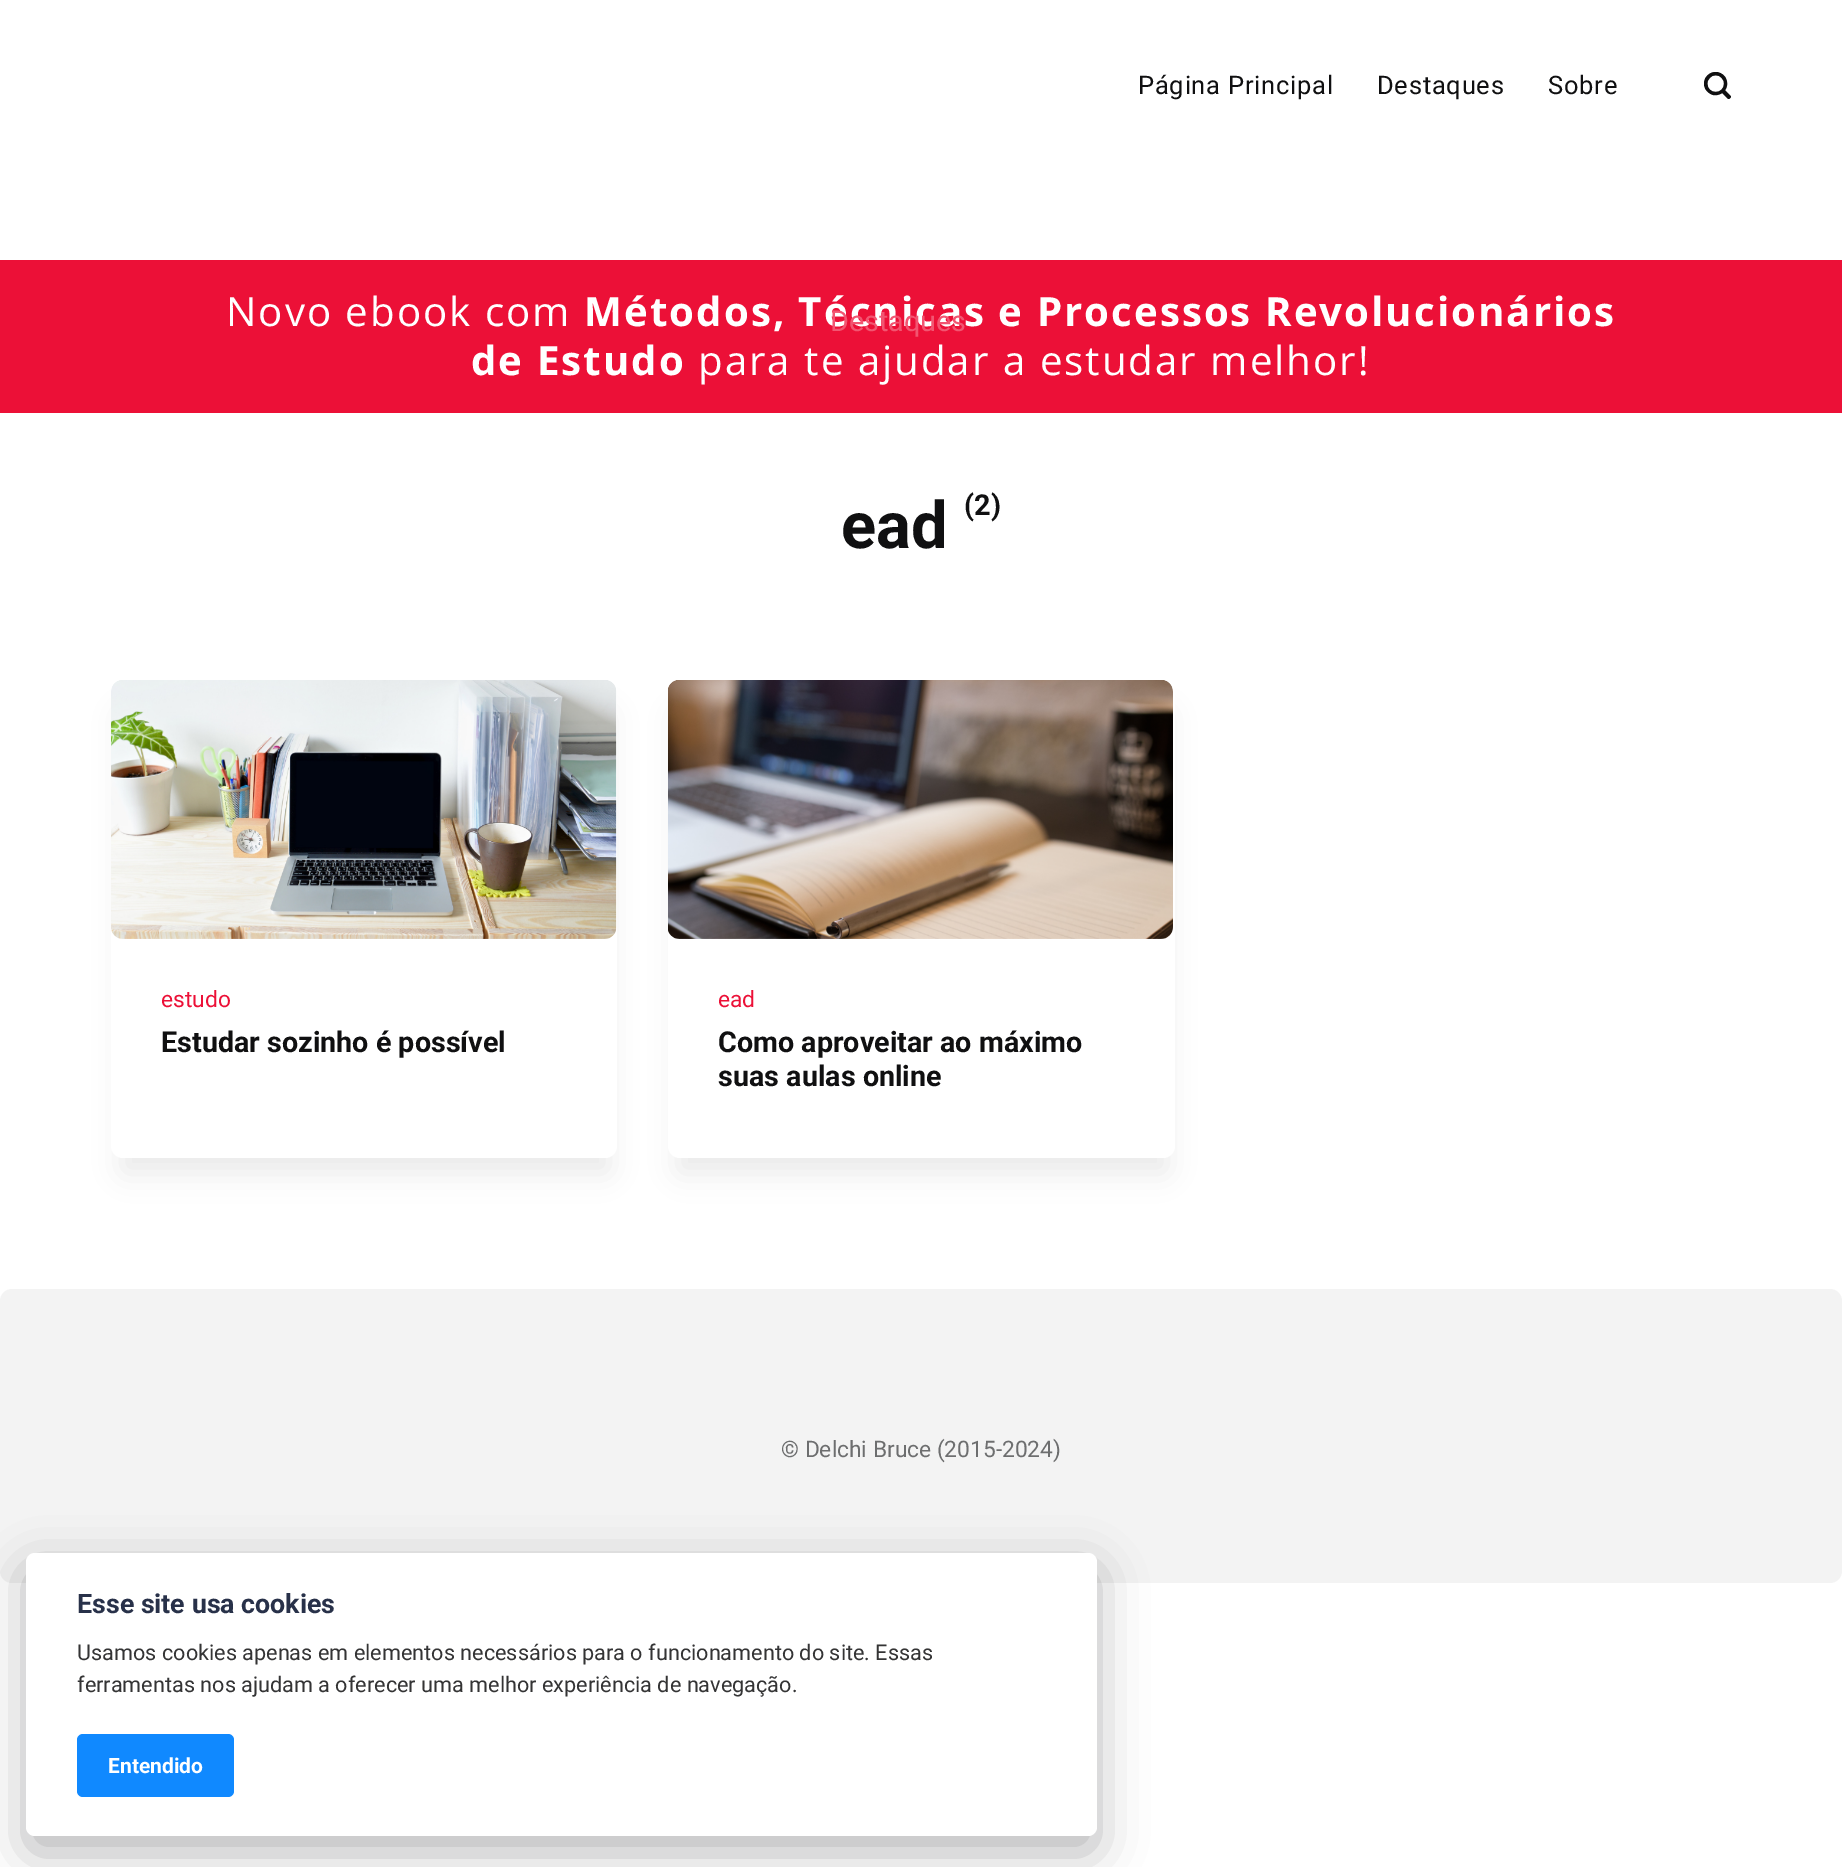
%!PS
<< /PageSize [1842 1867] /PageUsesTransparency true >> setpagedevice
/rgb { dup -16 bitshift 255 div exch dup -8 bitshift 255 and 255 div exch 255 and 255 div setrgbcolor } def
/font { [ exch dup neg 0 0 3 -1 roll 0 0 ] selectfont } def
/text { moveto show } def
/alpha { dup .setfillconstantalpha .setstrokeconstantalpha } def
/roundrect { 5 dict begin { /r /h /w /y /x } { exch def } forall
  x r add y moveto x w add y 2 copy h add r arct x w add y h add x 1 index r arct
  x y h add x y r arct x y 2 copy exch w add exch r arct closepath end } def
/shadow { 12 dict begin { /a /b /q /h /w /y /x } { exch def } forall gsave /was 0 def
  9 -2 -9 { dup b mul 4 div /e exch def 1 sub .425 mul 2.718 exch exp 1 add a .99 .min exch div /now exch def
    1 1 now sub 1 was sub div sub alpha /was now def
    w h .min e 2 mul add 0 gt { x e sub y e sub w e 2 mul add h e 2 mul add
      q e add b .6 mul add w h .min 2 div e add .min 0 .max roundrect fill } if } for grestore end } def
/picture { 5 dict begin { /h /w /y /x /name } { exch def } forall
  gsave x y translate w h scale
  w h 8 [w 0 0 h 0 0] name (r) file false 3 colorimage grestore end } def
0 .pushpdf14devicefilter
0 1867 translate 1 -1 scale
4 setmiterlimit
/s1 { /Roboto-Regular 28.75 font 16#F25571 rgb } def
/s2 { /Roboto-Bold 65 font 16#101011 rgb } def
/s3 { /Roboto-Bold 28.75 font 16#101011 rgb } def
/s4 { /Roboto-Regular 22.75 font 16#EC1037 rgb } def
/s5 { /Roboto-Regular 22.75 font 16#6D6E6F rgb } def
/s6 { /Roboto-Bold 26.75 font 16#283149 rgb } def
/s7 { /Roboto-Regular 21.65 font 16#343435 rgb } def
/s8 { /Roboto-Bold 21 font 16#FFFFFF rgb } def
16#FFFFFF rgb
0 0 1842 1867 rectfill
/Roboto-Regular 25.5 font
16#101011 rgb
1138 94 moveto 0.75 0 (Página Principal) ashow
1377 94 moveto 0.75 0 (Destaques) ashow
1548 94 moveto 0.75 0 (Sobre) ashow
(pic1.raw) 1704 72 27 27 picture
16#EC1037 rgb
0 260 1842 153 rectfill
/OpenSans-Regular 40.25 font
16#FFFFFF rgb
226 326 moveto 2 0 (Novo ebook com) ashow
/OpenSans-Bold 40.25 font
584 326 moveto 2 0 (Métodos, Técnicas e Processos Revolucionários) ashow
471 375 moveto 2 0 (de Estudo) ashow
/OpenSans-Regular 40.25 font
698 375 moveto 2 0 (para te ajudar a estudar melhor!) ashow
s1
(Destaques) 830 331 text
s2
(ead) 841 548 text
s3
(\(2\)) 964 515 text
16#000000 rgb
122 713 487 460 3 13.5 0.08 shadow
16#FFFFFF rgb
111 680 506 478 12 roundrect fill
(pic2.raw) 111 680 506 259 picture
s4
(estudo) 161 1007 text
s3
(Estudar sozinho é possível) 161 1052 text
16#000000 rgb
678 713 489 460 3 13.5 0.08 shadow
16#FFFFFF rgb
668 680 507 478 12 roundrect fill
(pic3.raw) 668 680 505 259 picture
s4
(ead) 718 1007 text
s3
(Como aproveitar ao máximo) 718 1052 text
(suas aulas online) 718 1086 text
16#F3F3F3 rgb
0 1289 1842 294 12 roundrect fill
s5
(© Delchi Bruce \(2015-2024\)) 781 1457 text
16#020203 rgb
26 1569 1071 284 9 24 0.28 shadow
16#FFFFFF rgb
26 1553 1071 283 9 roundrect fill
s6
(Esse site usa cookies) 77 1613 text
s7
(Usamos cookies apenas em elementos necessários para o funcionamento do site. Essas) 77 1660 text
(ferramentas nos ajudam a oferecer uma melhor experiência de navegação.) 77 1692 text
16#1089FF rgb
77 1734 157 63 6 roundrect fill
s8
(Entendido) 108 1773 text
.poppdf14devicefilter showpage
